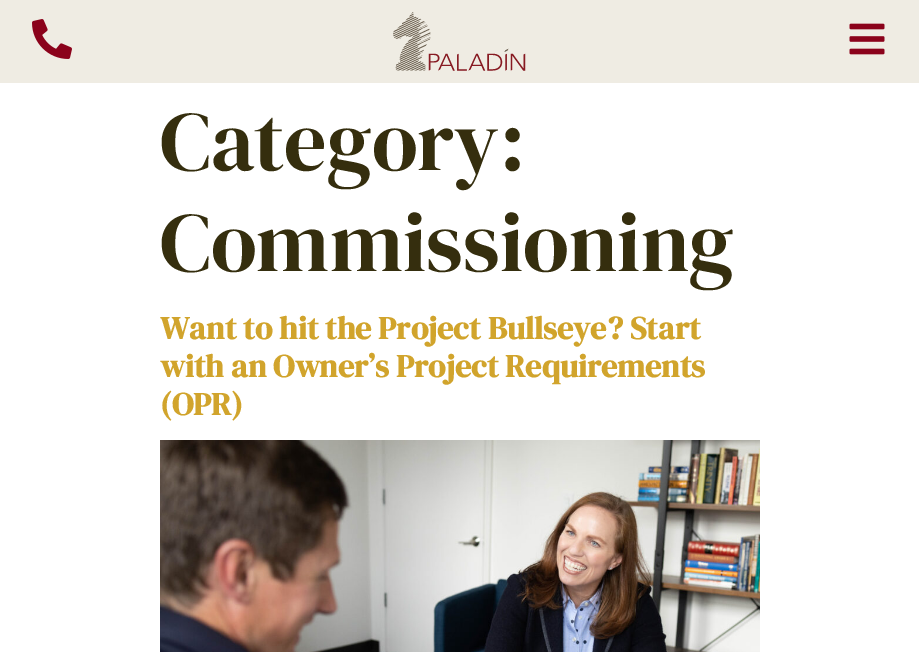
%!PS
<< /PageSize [919 652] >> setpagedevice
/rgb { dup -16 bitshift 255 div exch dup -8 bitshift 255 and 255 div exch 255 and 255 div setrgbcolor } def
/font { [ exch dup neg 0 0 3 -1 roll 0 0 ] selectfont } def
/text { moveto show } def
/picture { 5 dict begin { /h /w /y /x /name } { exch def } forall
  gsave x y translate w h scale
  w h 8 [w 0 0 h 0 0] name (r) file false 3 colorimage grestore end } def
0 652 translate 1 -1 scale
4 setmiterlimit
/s1 { /DMSerifDisplay-Regular 84 font 16#352E0E rgb } def
/s2 { /DMSerifDisplay-Bold 32 font 16#D1A42C rgb } def
16#FFFFFF rgb
0 0 919 652 rectfill
16#EFECE3 rgb
0 0 919 83 rectfill
(pic1.raw) 32 19 40 40 picture
(pic2.raw) 393 12 133 59 picture
(pic3.raw) 849 23 36 32 picture
s1
(Category:) 160 170 text
(Commissioning) 160 271 text
s2
(Want to hit the Project Bullseye? Start) 160 339 text
(with an Owner’s Project Requirements) 160 377 text
(\(OPR\)) 160 415 text
(pic4.raw) 160 440 600 212 picture
showpage
